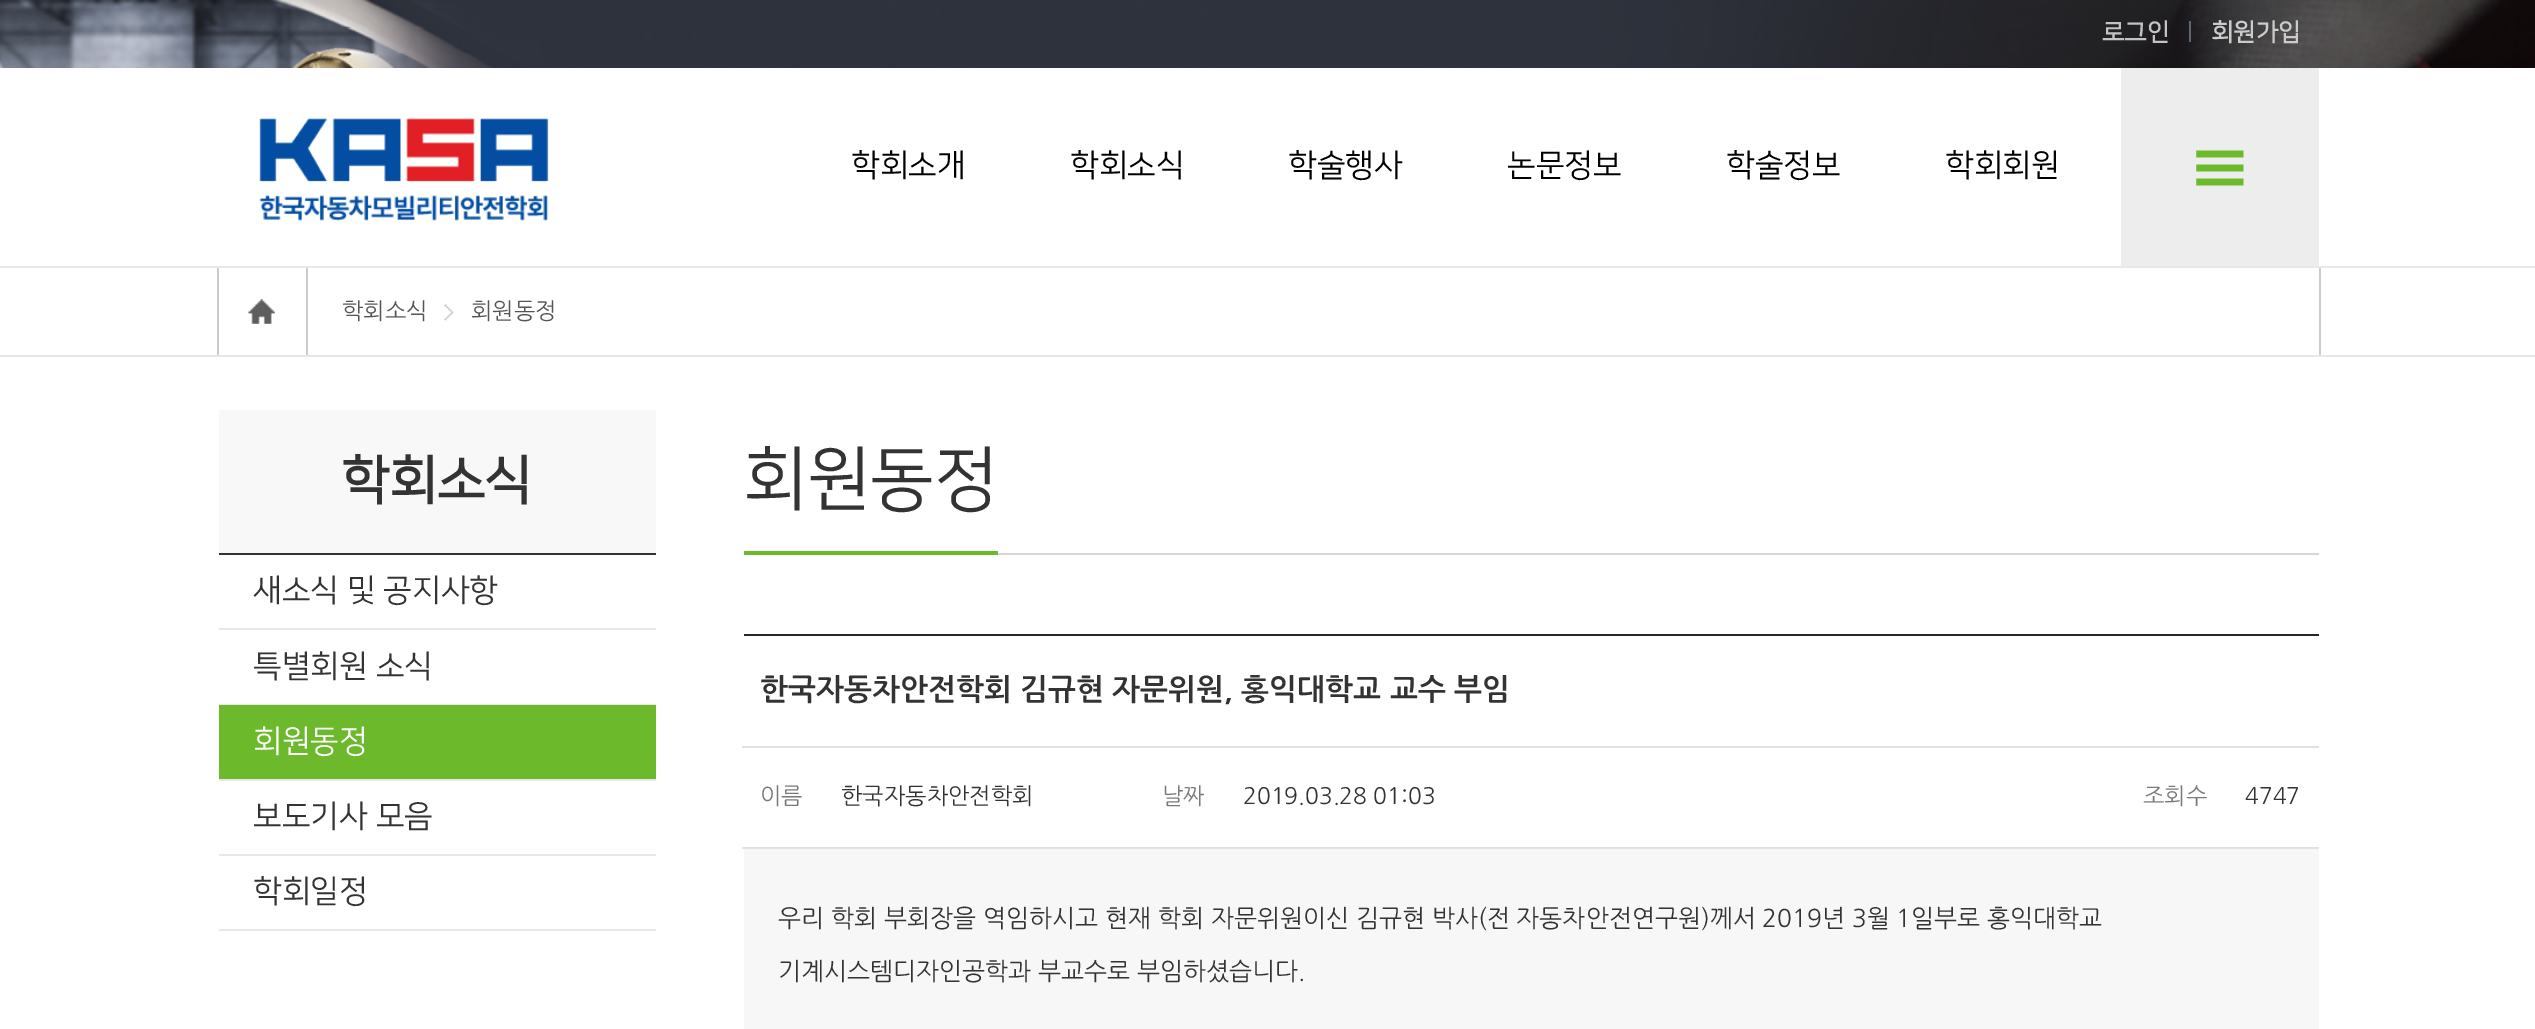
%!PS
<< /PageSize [2535 1029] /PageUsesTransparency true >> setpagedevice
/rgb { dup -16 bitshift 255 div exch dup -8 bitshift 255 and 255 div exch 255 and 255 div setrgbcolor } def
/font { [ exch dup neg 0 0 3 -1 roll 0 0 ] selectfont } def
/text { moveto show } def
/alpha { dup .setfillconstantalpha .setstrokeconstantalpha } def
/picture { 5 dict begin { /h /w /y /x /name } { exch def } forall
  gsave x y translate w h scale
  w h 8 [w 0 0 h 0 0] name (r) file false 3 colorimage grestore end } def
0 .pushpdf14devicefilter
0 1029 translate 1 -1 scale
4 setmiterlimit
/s1 { /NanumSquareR-Bold 24.5 font 16#C3C3C3 rgb } def
/s2 { /NanumSquareR-Bold 24.5 font 16#CBCBCB rgb } def
/s3 { /NanumSquareR-Regular 31.5 font 16#000000 rgb } def
/s4 { /NanumGothic-Regular 22.75 font 16#555555 rgb } def
/s5 { /NanumSquareR-Bold 52.5 font 16#333333 rgb } def
/s6 { /NanumSquareR-Regular 31.5 font 16#333333 rgb } def
/s7 { /NanumSquareR-Regular 31.5 font 16#FFFFFF rgb } def
/s8 { /NanumSquareR-Regular 70 font 16#333333 rgb } def
/s9 { /NanumGothic-Bold 29.75 font 16#333333 rgb } def
/s10 { /NanumGothic-Regular 22.75 font 16#797979 rgb } def
/s11 { /NanumGothic-Regular 22.75 font 16#333333 rgb } def
/s12 { /NanumGothic-Regular 24.5 font 16#333333 rgb } def
16#FFFFFF rgb
0 0 2535 1029 rectfill
(pic1.raw) 0 0 2535 68 picture
s1
(로그인) 2102 40 text
0.73 alpha
16#748393 rgb
2189 21 2 21 rectfill
1 alpha
s2
(회원가입) 2211 40 text
(pic2.raw) 259 118 290 103 picture
s3
(학회소개) 851 175 text
(학회소식) 1070 175 text
(학술행사) 1288 175 text
(논문정보) 1507 175 text
(학술정보) 1726 175 text
(학회회원) 1945 175 text
16#EDEDED rgb
2121 68 198 198 rectfill
(pic3.raw) 2196 150 48 36 picture
16#E7E7E7 rgb
0 266 2535 2 rectfill
0 355 2535 2 rectfill
16#CBCBCB rgb
2319 268 2 87 rectfill
217 268 2 87 rectfill
306 268 2 87 rectfill
(pic4.raw) 248 299 27 25 picture
(pic5.raw) 444 304 10 17 picture
s4
(학회소식) 342 319 text
(회원동정) 471 319 text
16#F8F8F8 rgb
219 410 437 143 rectfill
16#333333 rgb
219 553 437 2 rectfill
s5
(학회소식) 341 497 text
16#E8E8E8 rgb
219 628 437 2 rectfill
s6
(새소식 및 공지사항) 253 600 text
16#E8E8E8 rgb
219 704 437 1 rectfill
s6
(특별회원 소식) 253 676 text
16#6CB92B rgb
219 705 437 74 rectfill
16#E8E8E8 rgb
219 779 437 2 rectfill
s7
(회원동정) 253 751 text
16#E8E8E8 rgb
219 854 437 2 rectfill
s6
(보도기사 모음) 253 826 text
16#E8E8E8 rgb
219 929 437 2 rectfill
s6
(학회일정) 253 901 text
16#D6D6D6 rgb
998 553 1321 2 rectfill
s8
(회원동정) 743 501 text
16#6CB92B rgb
744 551 254 4 rectfill
16#262626 rgb
744 634 1575 2 rectfill
16#E1E1E1 rgb
742 746 1577 2 rectfill
s9
(한국자동차안전학회 김규현 자문위원, 홍익대학교 교수 부임) 760 700 text
16#E1E1E1 rgb
742 847 1577 2 rectfill
s10
(이름) 760 804 text
s11
(한국자동차안전학회) 841 804 text
s10
(날짜) 1162 804 text
s11
(2019.03.28 01:03) 1243 804 text
s10
(조회수) 2143 804 text
s11
(4747) 2245 804 text
16#F7F7F7 rgb
744 849 1575 180 rectfill
s12
(우리 학회 부회장을 역임하시고 현재 학회 자문위원이신 김규현 박사\(전 자동차안전연구원\)께서 2019년 3월 1일부로 홍익대학교) 778 927 text
(기계시스템디자인공학과 부교수로 부임하셨습니다.) 778 980 text
.poppdf14devicefilter showpage
